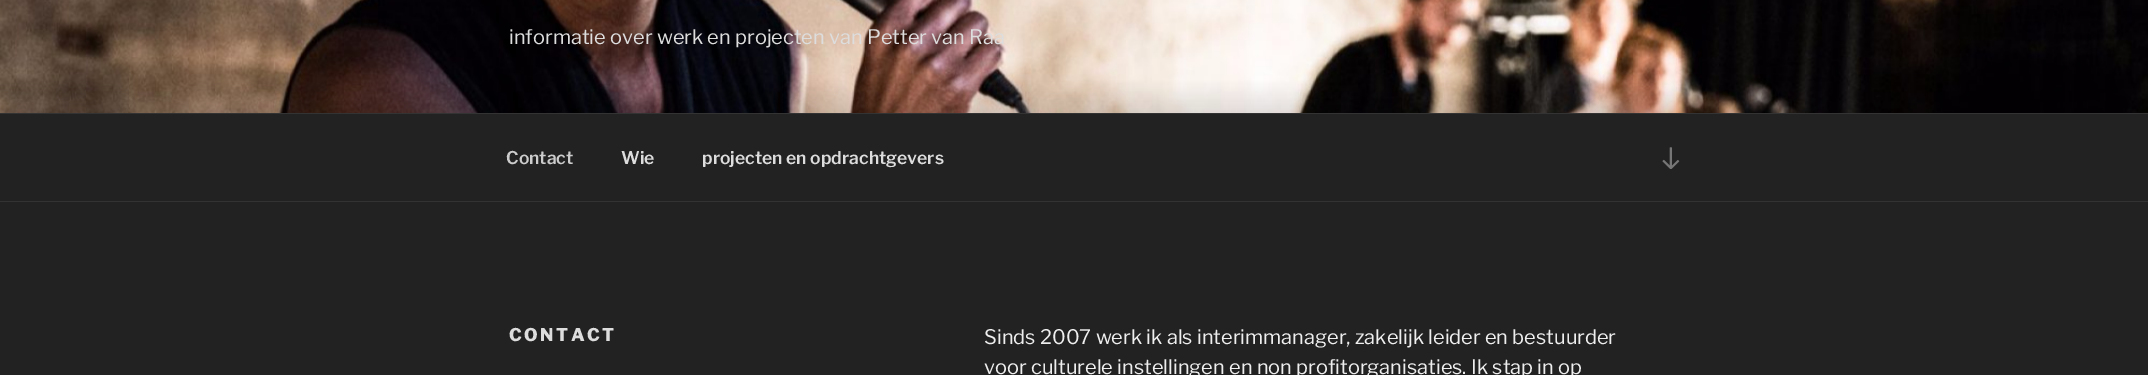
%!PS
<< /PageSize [2148 375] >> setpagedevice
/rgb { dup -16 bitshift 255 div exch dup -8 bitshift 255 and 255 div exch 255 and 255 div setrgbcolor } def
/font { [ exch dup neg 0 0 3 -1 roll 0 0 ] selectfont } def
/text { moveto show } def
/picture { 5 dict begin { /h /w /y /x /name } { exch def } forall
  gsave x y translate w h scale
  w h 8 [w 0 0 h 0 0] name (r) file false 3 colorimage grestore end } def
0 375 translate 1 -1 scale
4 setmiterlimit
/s1 { /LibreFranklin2-Thin 20 font 16#DDDDDD rgb } def
/s2 { /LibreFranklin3-Thin 17.5 font 16#CCCCCC rgb } def
/s3 { /LibreFranklin3-Thin 17.5 font 16#DDDDDD rgb } def
/s4 { /LibreFranklin2-Thin 20 font 16#EEEEEE rgb } def
16#FFFFFF rgb
0 0 2148 375 rectfill
(pic1.raw) 0 0 2148 113 picture
s1
(informatie over werk en projecten van Petter van Raa) 509 44 text
16#333333 rgb
0 113 2148 1 rectfill
16#222222 rgb
0 114 2148 261 rectfill
16#333333 rgb
0 201 2148 1 rectfill
s2
(Contact) 506 164 text
s3
(Wie) 621 164 text
(projecten en opdrachtgevers) 702 164 text
(pic2.raw) 1662 147 18 22 picture
/LibreFranklin-Thin 17.5 font
509 341 moveto 2.5 0 (CONTACT) ashow
s4
(Sinds 2007 werk ik als interimmanager, zakelijk leider en bestuurder) 984 344 text
(voor culturele instellingen en non profitorganisaties. Ik stap in op) 984 374 text
showpage
